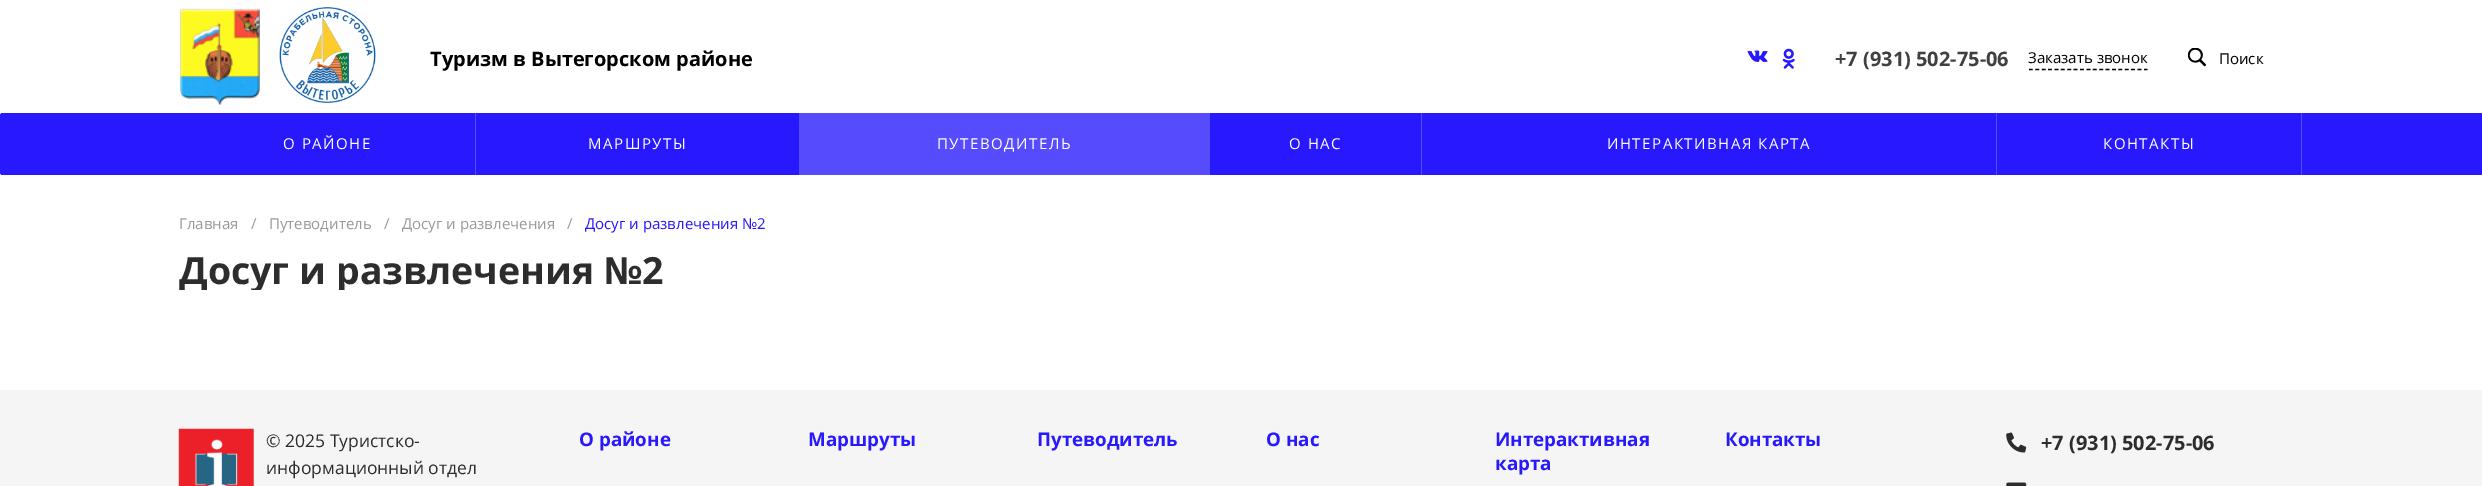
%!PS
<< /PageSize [2482 486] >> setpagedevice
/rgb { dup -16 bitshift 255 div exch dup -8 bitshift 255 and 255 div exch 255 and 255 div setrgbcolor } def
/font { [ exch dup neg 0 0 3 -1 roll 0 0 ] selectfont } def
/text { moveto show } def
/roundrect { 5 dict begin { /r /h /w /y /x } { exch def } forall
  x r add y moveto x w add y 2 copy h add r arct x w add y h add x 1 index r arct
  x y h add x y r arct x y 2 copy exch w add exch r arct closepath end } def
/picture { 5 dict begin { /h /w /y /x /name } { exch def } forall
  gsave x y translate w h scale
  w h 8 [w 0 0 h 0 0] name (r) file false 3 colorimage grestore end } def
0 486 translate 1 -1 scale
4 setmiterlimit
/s1 { /OpenSans-Bold 20 font 16#000000 rgb } def
/s2 { /OpenSans-Bold 20 font 16#404040 rgb } def
/s3 { /OpenSans-Regular 15 font 16#000000 rgb } def
/s4 { /OpenSans-Regular 15 font 16#9A9A9A rgb } def
/s5 { /OpenSans-Regular 15 font 16#2718FD rgb } def
/s6 { /OpenSans-Bold 37.5 font 16#2D2D2D rgb } def
/s7 { /OpenSans-Regular 17.5 font 16#2D2D2D rgb } def
/s8 { /OpenSans-Bold 18.75 font 16#2718FD rgb } def
/s9 { /OpenSans-Bold 20 font 16#2D2D2D rgb } def
16#FFFFFF rgb
0 0 2482 486 rectfill
(pic1.raw) 179 8 81 97 picture
(pic2.raw) 279 7 97 96 picture
s1
(Туризм в Вытегорском районе) 430 66 text
(pic3.raw) 1747 50 21 12 picture
(pic4.raw) 1782 48 13 21 picture
s2
(+7 \(931\) 502-75-06) 1835 66 text
16#000000 rgb
1.2 setlinewidth
[3.75 2.64] 0 setdash
2029 69.5 moveto 2147.5 69.5 lineto stroke
s3
(Заказать звонок) 2028 63 text
(pic5.raw) 2188 48 18 19 picture
(Поиск) 2219 64 text
16#2718FD rgb
0 113 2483 62 2.5 roundrect fill
16#564BFD rgb
475 113 1 62 rectfill
16#FFFFFF rgb
283 149 moveto 1.5 0 (О РАЙОНЕ) ashow
16#564BFD rgb
799 113 411 62 rectfill
16#FFFFFF rgb
588 149 moveto 1.5 0 (МАРШРУТЫ) ashow
937 149 moveto 1.5 0 (ПУТЕВОДИТЕЛЬ) ashow
16#564BFD rgb
1421 113 1 62 rectfill
16#FFFFFF rgb
1289 149 moveto 1.5 0 (О НАС) ashow
16#564BFD rgb
1996 113 1 62 rectfill
16#FFFFFF rgb
1607 149 moveto 1.5 0 (ИНТЕРАКТИВНАЯ КАРТА) ashow
16#564BFD rgb
2301 113 1 62 rectfill
16#FFFFFF rgb
2103 149 moveto 1.5 0 (КОНТАКТЫ) ashow
s4
(Главная) 179 229 text
(/) 251 229 text
(Путеводитель) 269 229 text
(/) 384 229 text
(Досуг и развлечения) 402 229 text
(/) 567 229 text
s5
(Досуг и развлечения №2) 585 229 text
gsave
154 249 2175 41 rectclip
s6
(Досуг и развлечения №2) 179 284 text
grestore
16#F5F5F5 rgb
0 390 2482 96 rectfill
(pic6.raw) 178 428 76 58 picture
s7
(© 2025 Туристско-) 266 447 text
(информационный отдел) 266 474 text
s8
(О районе) 579 446 text
(Маршруты) 808 446 text
(Путеводитель) 1037 446 text
(О нас) 1266 446 text
(Интерактивная) 1495 446 text
(карта) 1495 470 text
(Контакты) 1725 446 text
(pic7.raw) 2006 432 21 21 picture
s9
(+7 \(931\) 502-75-06) 2041 450 text
(pic8.raw) 2006 482 21 4 picture
showpage
